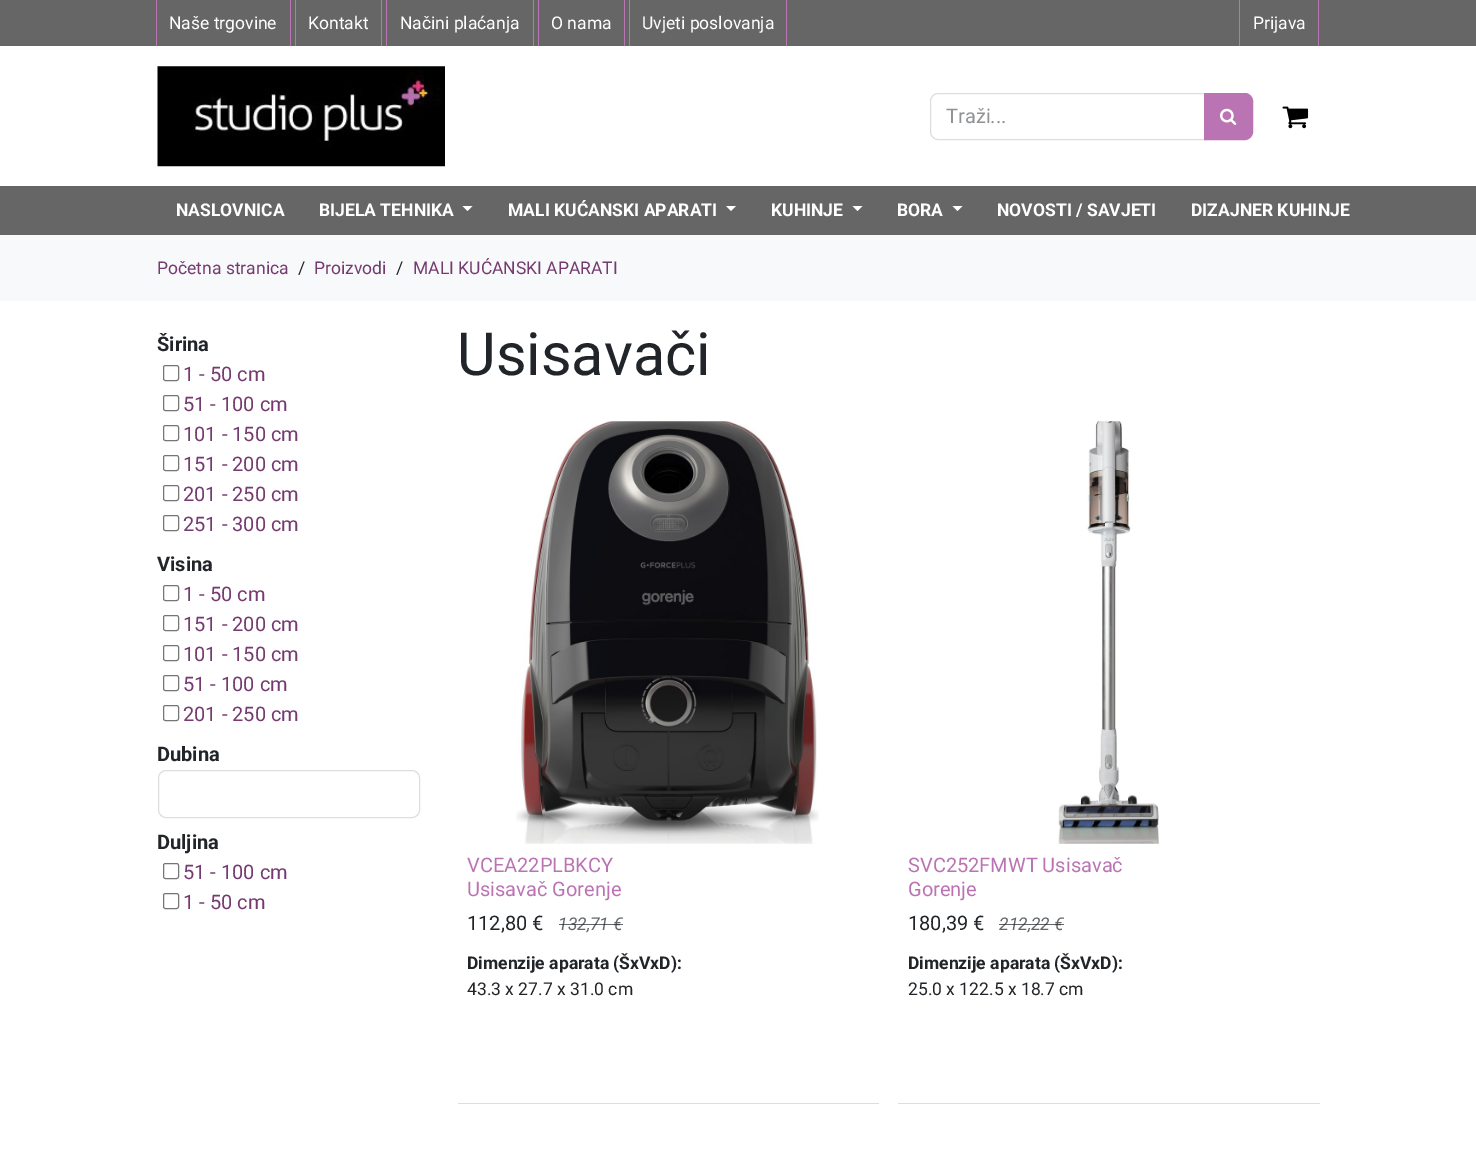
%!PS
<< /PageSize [1476 1151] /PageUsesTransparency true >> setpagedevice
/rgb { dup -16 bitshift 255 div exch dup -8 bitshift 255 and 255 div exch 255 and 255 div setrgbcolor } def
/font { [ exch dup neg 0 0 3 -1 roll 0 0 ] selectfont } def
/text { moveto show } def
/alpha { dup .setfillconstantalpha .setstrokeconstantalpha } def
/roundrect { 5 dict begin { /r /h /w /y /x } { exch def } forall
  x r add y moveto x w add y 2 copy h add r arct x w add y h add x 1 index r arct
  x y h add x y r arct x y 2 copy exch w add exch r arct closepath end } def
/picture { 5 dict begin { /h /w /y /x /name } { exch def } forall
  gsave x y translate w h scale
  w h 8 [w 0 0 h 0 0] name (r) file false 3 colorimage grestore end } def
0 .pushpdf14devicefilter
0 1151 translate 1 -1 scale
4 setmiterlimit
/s1 { /Roboto-Regular 17.5 font 16#FFFFFF rgb } def
/s2 { /Roboto-Regular 20 font 16#909294 rgb } def
/s3 { /Roboto-Bold 17.5 font 16#FFFFFF rgb } def
/s4 { /Roboto-Regular 17.5 font 16#753A6F rgb } def
/s5 { /Roboto-Regular 17.5 font 16#212529 rgb } def
/s6 { /Roboto-Bold 20 font 16#212529 rgb } def
/s7 { /Roboto-Regular 20 font 16#753A6F rgb } def
/s8 { /Roboto-Regular 59.5 font 16#212529 rgb } def
/s9 { /Roboto-Regular 20 font 16#BA74B3 rgb } def
/s10 { /Roboto-Regular 20 font 16#212529 rgb } def
/s11 { /Roboto-Italic 17.5 font 16#646669 rgb } def
/s12 { /Roboto-Bold 17.5 font 16#212529 rgb } def
16#FFFFFF rgb
0 0 1476 1151 rectfill
16#666666 rgb
0 0 1476 46 rectfill
16#BA74B3 rgb
290 0 1 46 rectfill
156 0 1 46 rectfill
s1
(Naše trgovine) 169 29 text
16#BA74B3 rgb
381 0 1 46 rectfill
295 0 1 46 rectfill
s1
(Kontakt) 308 29 text
16#BA74B3 rgb
533 0 1 46 rectfill
386 0 1 46 rectfill
s1
(Načini plaćanja) 400 29 text
16#BA74B3 rgb
624 0 1 46 rectfill
538 0 1 46 rectfill
s1
(O nama) 551 29 text
16#BA74B3 rgb
786 0 1 46 rectfill
629 0 1 46 rectfill
s1
(Uvjeti poslovanja) 642 29 text
16#BA74B3 rgb
1318 0 1 46 rectfill
1239 0 1 46 rectfill
s1
(Prijava) 1253 29 text
(pic1.raw) 157 66 288 101 picture
16#DEDEDF rgb
938 93.5 moveto 1204.5 93.5 lineto 1204.5 139.5 lineto 938 139.5 lineto 934 139.5 930.5 136 930.5 132 curveto 930.5 101 lineto 930.5 97 934 93.5 938 93.5 curveto closepath stroke
s2
(Traži...) 946 123 text
16#BA74B3 rgb
1204.5 93.5 moveto 1245 93.5 lineto 1249 93.5 1252.5 97 1252.5 101 curveto 1252.5 132 lineto 1252.5 136 1249 139.5 1245 139.5 curveto 1204.5 139.5 lineto closepath gsave fill grestore
stroke
(pic2.raw) 1220 108 17 17 picture
(pic3.raw) 1282 106 27 23 picture
16#666666 rgb
0 186 1476 49 rectfill
s3
(NASLOVNICA) 176 216 text
(BIJELA TEHNIKA) 319 216 text
462.5 206 moveto 472.5 206 lineto 467.5 211 lineto closepath fill
(MALI KUĆANSKI APARATI) 508 216 text
726 206 moveto 736 206 lineto 731 211 lineto closepath fill
(KUHINJE) 771 216 text
852.5 206 moveto 862.5 206 lineto 857.5 211 lineto closepath fill
(BORA) 897 216 text
952.5 206 moveto 962.5 206 lineto 957.5 211 lineto closepath fill
(NOVOSTI / SAVJETI) 997 216 text
(DIZAJNER KUHINJE) 1191 216 text
16#F8F9FA rgb
0 235 1476 66 rectfill
s4
(Početna stranica) 157 274 text
s5
(/) 298 274 text
s4
(Proizvodi) 314 274 text
s5
(/) 396 274 text
s4
(MALI KUĆANSKI APARATI) 413 274 text
s6
(Širina) 157 351 text
16#767676 rgb
163.5 365.5 15 15 2 roundrect stroke
s7
(1 - 50 cm) 183 381 text
16#767676 rgb
163.5 395.5 15 15 2 roundrect stroke
s7
(51 - 100 cm) 183 411 text
16#767676 rgb
163.5 425.5 15 15 2 roundrect stroke
s7
(101 - 150 cm) 183 441 text
16#767676 rgb
163.5 455.5 15 15 2 roundrect stroke
s7
(151 - 200 cm) 183 471 text
16#767676 rgb
163.5 485.5 15 15 2 roundrect stroke
s7
(201 - 250 cm) 183 501 text
16#767676 rgb
163.5 515.5 15 15 2 roundrect stroke
s7
(251 - 300 cm) 183 531 text
s6
(Visina) 157 571 text
16#767676 rgb
163.5 585.5 15 15 2 roundrect stroke
s7
(1 - 50 cm) 183 601 text
16#767676 rgb
163.5 615.5 15 15 2 roundrect stroke
s7
(151 - 200 cm) 183 631 text
16#767676 rgb
163.5 645.5 15 15 2 roundrect stroke
s7
(101 - 150 cm) 183 661 text
16#767676 rgb
163.5 675.5 15 15 2 roundrect stroke
s7
(51 - 100 cm) 183 691 text
16#767676 rgb
163.5 705.5 15 15 2 roundrect stroke
s7
(201 - 250 cm) 183 721 text
s6
(Dubina) 157 761 text
16#DEDEDF rgb
158.5 770.5 261 47 7.5 roundrect stroke
s6
(Duljina) 157 849 text
16#767676 rgb
163.5 863.5 15 15 2 roundrect stroke
s7
(51 - 100 cm) 183 879 text
16#767676 rgb
163.5 893.5 15 15 2 roundrect stroke
s7
(1 - 50 cm) 183 909 text
s8
(Usisavači) 457 375 text
16#DEDEDF rgb
458 1103 421 1 rectfill
(pic4.raw) 516 421 303 423 picture
s9
(VCEA22PLBKCY) 467 872 text
(Usisavač Gorenje) 467 896 text
s10
(112,80 €) 467 930 text
s11
(132,71 €) 558 930 text
0.7 alpha
16#212529 rgb
559 924 50 1 rectfill
609 924 14 1 rectfill
1 alpha
s12
(Dimenzije aparata \(ŠxVxD\):) 467 969 text
s5
(43.3 x 27.7 x 31.0 cm) 467 995 text
16#DEDEDF rgb
898 1103 422 1 rectfill
(pic5.raw) 1058 421 101 423 picture
s9
(SVC252FMWT Usisavač) 908 872 text
(Gorenje) 908 896 text
s10
(180,39 €) 908 930 text
s11
(212,22 €) 999 930 text
0.7 alpha
16#212529 rgb
999 924 51 1 rectfill
1050 924 14 1 rectfill
1 alpha
s12
(Dimenzije aparata \(ŠxVxD\):) 908 969 text
s5
(25.0 x 122.5 x 18.7 cm) 908 995 text
.poppdf14devicefilter showpage
